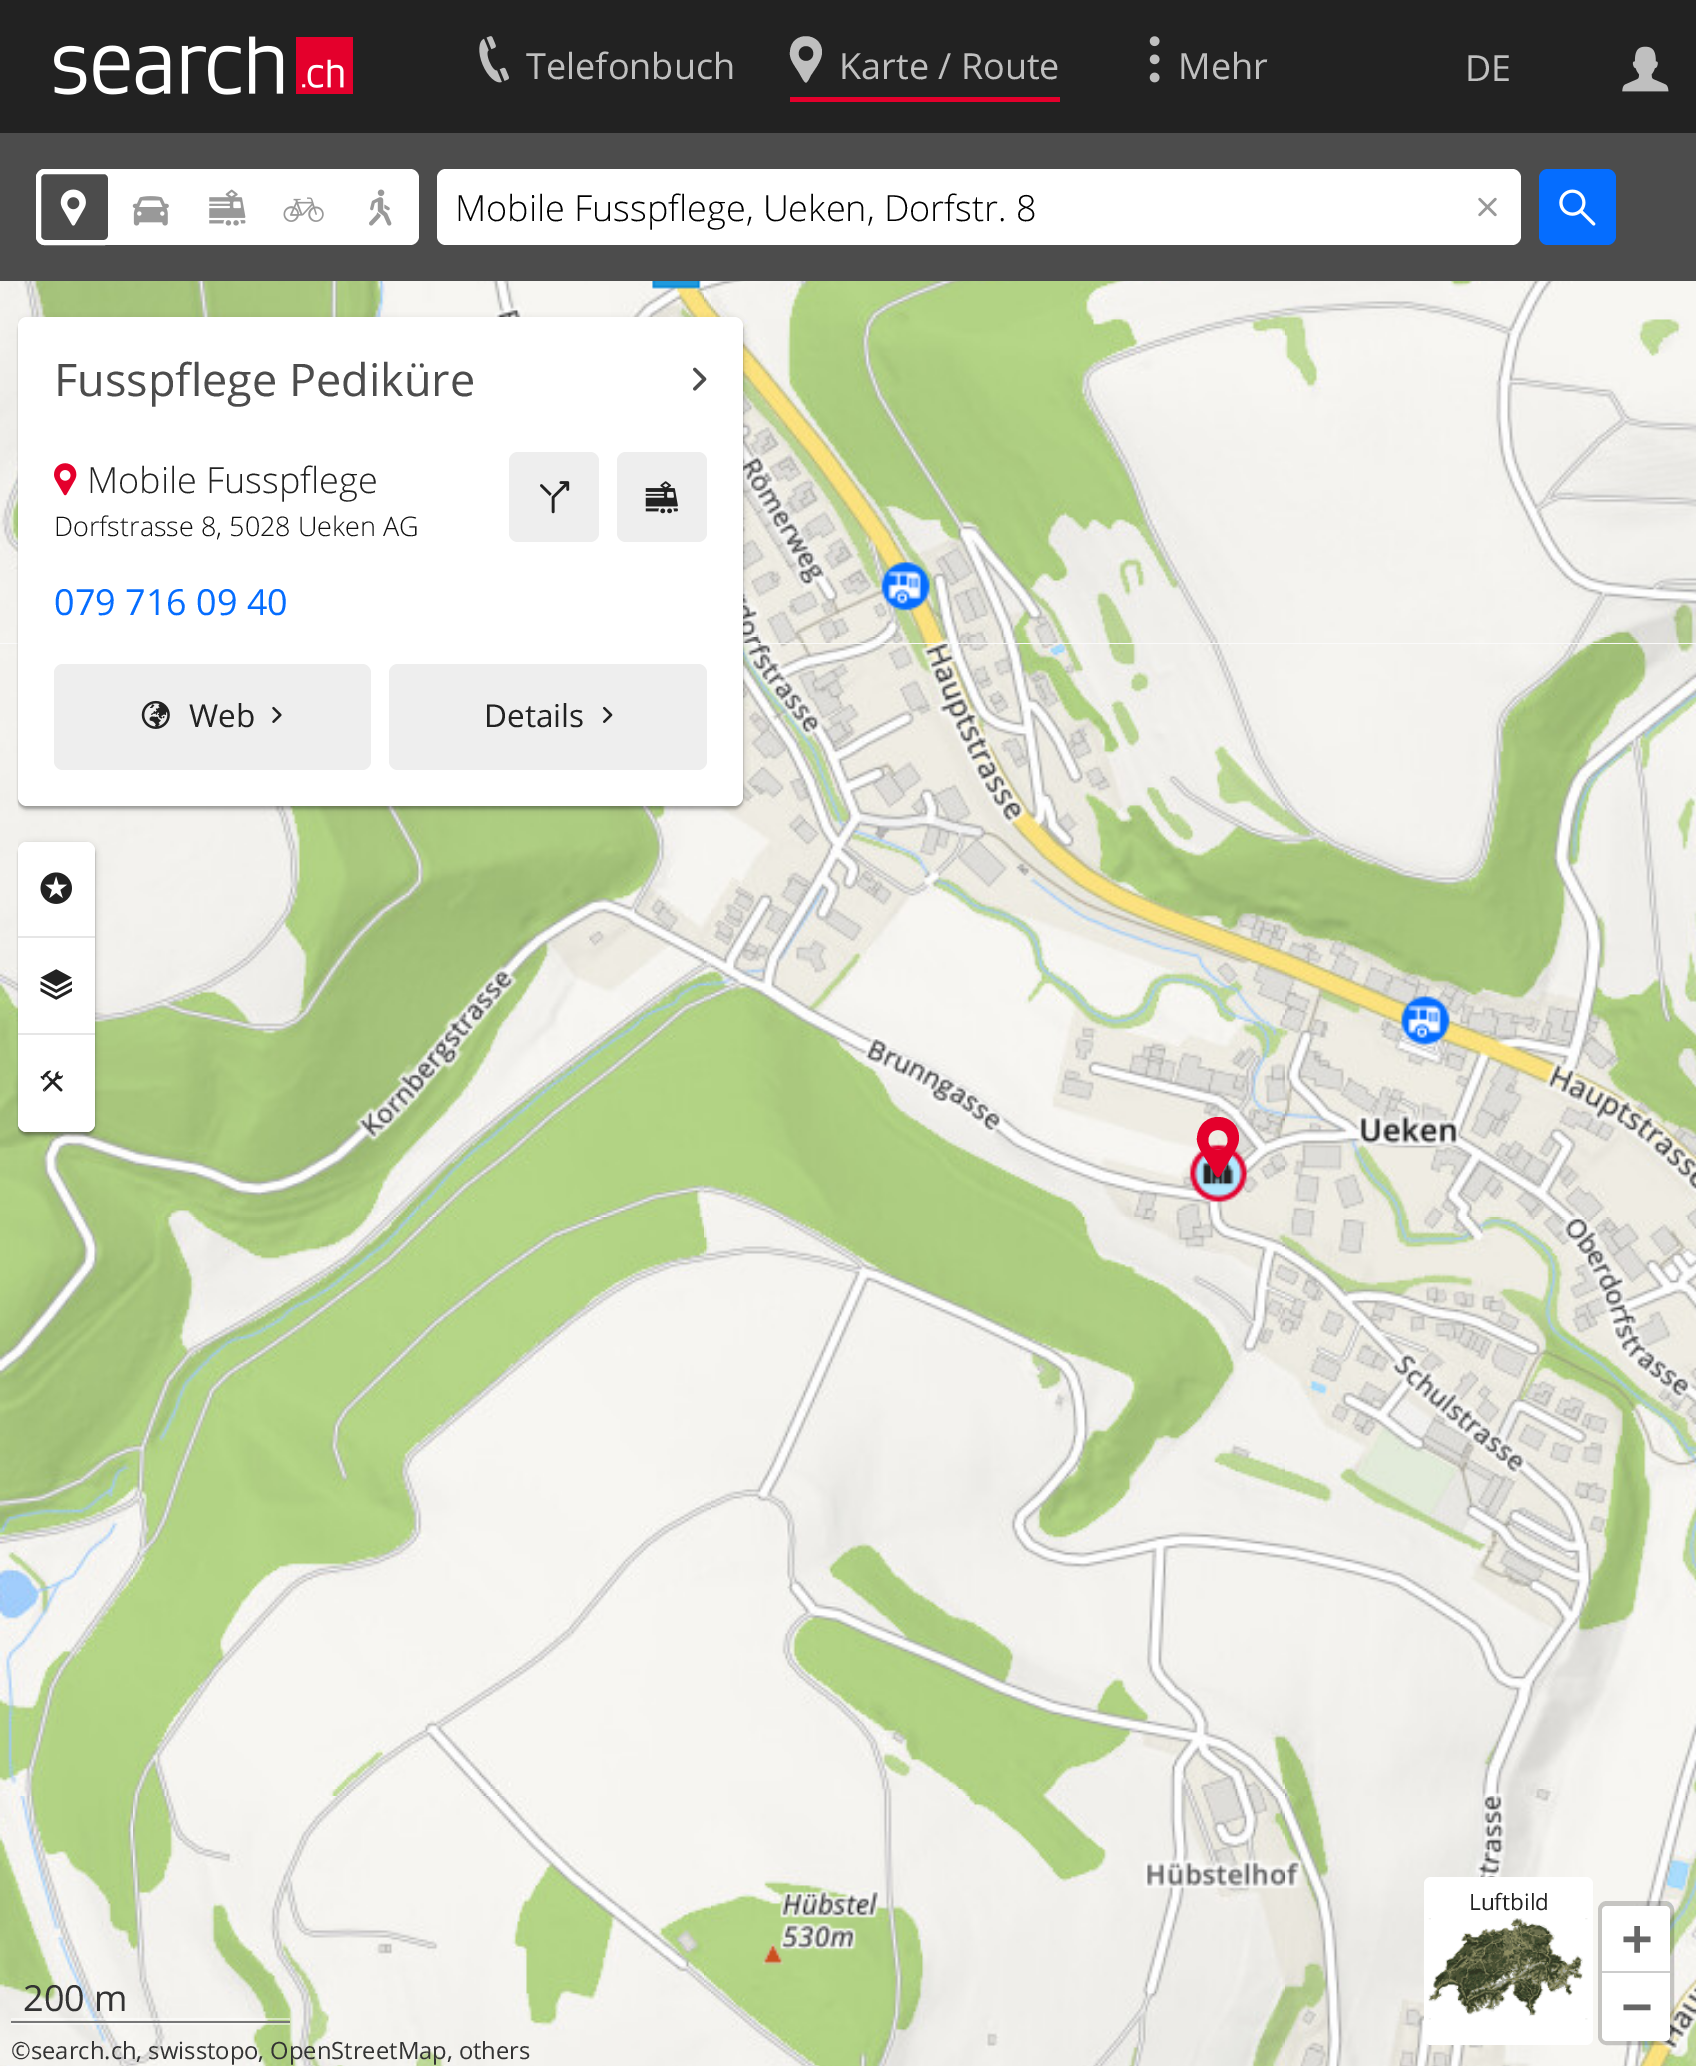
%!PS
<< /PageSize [1696 2066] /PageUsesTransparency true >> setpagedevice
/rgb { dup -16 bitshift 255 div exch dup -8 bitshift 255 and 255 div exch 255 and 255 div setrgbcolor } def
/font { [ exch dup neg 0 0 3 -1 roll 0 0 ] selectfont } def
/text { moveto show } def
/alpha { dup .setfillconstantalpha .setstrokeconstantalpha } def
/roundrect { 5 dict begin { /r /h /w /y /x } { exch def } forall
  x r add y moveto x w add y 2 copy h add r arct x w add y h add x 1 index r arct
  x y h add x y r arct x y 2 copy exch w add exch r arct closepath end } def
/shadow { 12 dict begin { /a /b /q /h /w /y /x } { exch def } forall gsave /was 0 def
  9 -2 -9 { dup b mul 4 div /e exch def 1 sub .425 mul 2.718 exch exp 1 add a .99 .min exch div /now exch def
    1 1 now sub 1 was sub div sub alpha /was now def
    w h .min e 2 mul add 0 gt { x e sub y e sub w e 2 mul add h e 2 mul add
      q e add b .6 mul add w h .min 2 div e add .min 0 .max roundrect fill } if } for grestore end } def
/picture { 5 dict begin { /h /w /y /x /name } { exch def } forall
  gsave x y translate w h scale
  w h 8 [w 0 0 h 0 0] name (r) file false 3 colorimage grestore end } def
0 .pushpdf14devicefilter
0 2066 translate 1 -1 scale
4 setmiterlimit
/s1 { /OpenSans-Regular 36 font 16#BFBFBF rgb } def
/s2 { /OpenSans-Light 36 font 16#000000 rgb } def
/s3 { /OpenSans-Regular 45 font 16#4C4C4C rgb } def
/s4 { /OpenSans-Light 36 font 16#222222 rgb } def
/s5 { /OpenSans-Light 27 font 16#111111 rgb } def
/s6 { /OpenSans-Regular 36 font 16#056DFF rgb } def
/s7 { /OpenSans-Regular 31.5 font 16#222222 rgb } def
/s8 { /OpenSans-Regular 22.5 font 16#222222 rgb } def
/s9 { /DejaVuSansMono-Bold 50 font 16#666666 rgb } def
/s10 { /OpenSans-Regular 36 font 16#333333 rgb } def
/s11 { /OpenSans-Regular 23.75 font 16#333333 rgb } def
16#FAFAFA rgb
0 0 1696 2066 rectfill
16#222222 rgb
0 0 1696 133 rectfill
(pic1.raw) 54 36 299 59 picture
(pic2.raw) 479 36 30 47 picture
s1
(Telefonbuch) 526 79 text
16#E4002C rgb
790 97 270 5 rectfill
16#BFBFBF rgb
822 52 moveto 822 32 791 30 790 52 curveto 789 59 795 66 798 71 curveto 806 84 805 87 811 75 curveto 815 69 822 60 822 52 curveto closepath 806 61 moveto 796 61 796 46 806 46 curveto 816 46 816 61 806 61 curveto closepath fill
(Karte / Route) 839 79 text
(pic3.raw) 1149 36 11 47 picture
(Mehr) 1178 79 text
(DE) 1465 81 text
(pic4.raw) 1622 46 47 46 picture
16#4C4C4C rgb
0 133 1696 148 rectfill
16#FFFFFF rgb
36 169 383 76 9 roundrect fill
16#4C4C4C rgb
38.5 171.5 72 71 6.5 roundrect gsave fill grestore
16#FFFFFF rgb
5 setlinewidth
stroke
(pic5.raw) 60 189 26 37 picture
(pic6.raw) 132 196 37 30 picture
(pic7.raw) 209 189 37 37 picture
(pic8.raw) 283 197 41 25 picture
(pic9.raw) 369 189 23 37 picture
437 169 1084 76 9 roundrect fill
s2
(Mobile Fusspflege, Ueken, Dorfstr. 8) 455 221 text
(pic10.raw) 1478 197 19 20 picture
16#056DFF rgb
1539 169 77 76 9 roundrect fill
(pic11.raw) 1559 189 37 37 picture
(pic23.raw) 0 281 711 362 picture
(pic24.raw) 711 281 985 362 picture
(pic25.raw) 0 644 711 1152 picture
(pic26.raw) 711 644 985 1152 picture
(pic29.raw) 494 281 207 36 picture
(pic30.raw) 743 452 207 191 picture
(pic32.raw) 743 644 953 1152 picture
gsave
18 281 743 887 rectclip
16#000000 rgb
18 320 725 488 9 3.5 0.2 shadow
grestore
16#000000 rgb
18 322 725 488 9 1 0.12 shadow
18 320 725 488 9 1 0.14 shadow
16#FFFFFF rgb
18 317 725 489 9 roundrect fill
s3
(Fusspflege Pediküre) 54 396 text
(pic12.raw) 693 367 14 24 picture
(pic13.raw) 54 463 23 33 picture
s4
(Mobile Fusspflege) 87 493 text
16#EEEEEE rgb
509 452 90 90 9 roundrect fill
(pic14.raw) 540 481 30 33 picture
617 452 90 90 9 roundrect fill
(pic15.raw) 645 481 33 33 picture
s5
(Dorfstrasse 8, 5028 Ueken AG) 54 536 text
s6
(079 716 09 40) 54 615 text
16#EEEEEE rgb
54 664 317 106 9 roundrect fill
(pic16.raw) 141 700 29 29 picture
s7
(Web) 189 727 text
(pic17.raw) 272 706 10 17 picture
16#EEEEEE rgb
389 664 318 106 9 roundrect fill
s7
(Details) 484 727 text
(pic18.raw) 603 706 10 17 picture
gsave
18 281 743 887 rectclip
16#000000 rgb
18 844 77 290 9 3.5 0.2 shadow
grestore
16#000000 rgb
18 846 77 290 9 1 0.12 shadow
18 844 77 290 9 1 0.14 shadow
16#FFFFFF rgb
18 842 77 290 9 roundrect fill
27 842 moveto 86 842 lineto 91 842 95 846 95 851 curveto 95 938 lineto 18 938 lineto 18 851 lineto 18 846 22 842 27 842 curveto closepath fill
16#E6E6E6 rgb
18 936 77 2 rectfill
(pic19.raw) 40 872 32 32 picture
18 1033 77 2 rectfill
(pic20.raw) 40 969 32 31 picture
16#FFFFFF rgb
18 1035 moveto 95 1035 lineto 95 1123 lineto 95 1128 91 1132 86 1132 curveto 27 1132 lineto 22 1132 18 1128 18 1123 curveto closepath fill
(pic21.raw) 40 1070 23 22 picture
(pic28.raw) 711 1796 985 270 picture
(pic33.raw) 762 1796 934 257 picture
1424 1877 169 168 7 roundrect fill
(pic22.raw) 1428 1918 160 102 picture
s8
(Luftbild) 1469 1910 text
(pic27.raw) 0 1796 711 270 picture
(pic31.raw) 355 965 163 177 picture
16#E4002C rgb
1239 1138 moveto 1239 1111 1199 1109 1197 1138 curveto 1196 1146 1205 1157 1208 1163 curveto 1213 1171 lineto 1214 1173 1217 1180 1220 1176 curveto 1233 1154 lineto 1236 1149 1239 1144 1239 1138 curveto closepath 1218 1150 moveto 1205 1150 1205 1130 1218 1130 curveto 1231 1130 1231 1150 1218 1150 curveto closepath fill
0.2 alpha
16#000000 rgb
1600.5 1903.5 71 139 6.5 roundrect stroke
1 alpha
16#FFFFFF rgb
1607 1906 moveto 1665 1906 lineto 1668 1906 1670 1908 1670 1911 curveto 1670 1973 lineto 1602 1973 lineto 1602 1911 lineto 1602 1908 1604 1906 1607 1906 curveto closepath fill
16#CCCCCC rgb
1602 1971 68 2 rectfill
s9
(+) 1622 1955 text
16#FFFFFF rgb
1602 1973 moveto 1670 1973 lineto 1670 2036 lineto 1670 2039 1668 2041 1665 2041 curveto 1607 2041 lineto 1604 2041 1602 2039 1602 2036 curveto closepath fill
s9
(−) 1622 2023 text
0.5 alpha
16#FFFFFF rgb
11 1978 moveto 11 2025 lineto 290 2025 lineto 290 2023 lineto 11 2023 lineto closepath fill
11 2018 279 2 rectfill
1 alpha
16#777777 rgb
11 2021 279 2 rectfill
s10
(200 m) 23 2011 text
s11
(©search.ch, swisstopo, OpenStreetMap, others) 11 2059 text
.poppdf14devicefilter showpage
